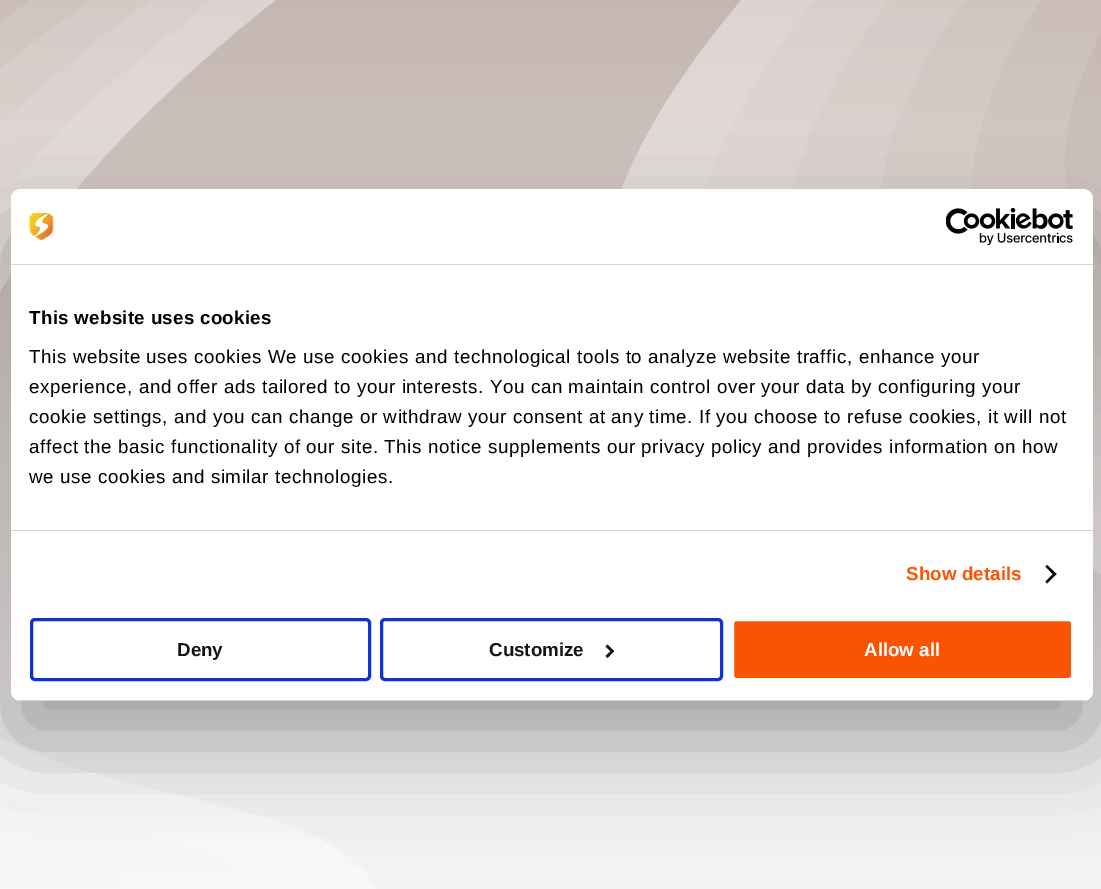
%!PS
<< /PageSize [1101 889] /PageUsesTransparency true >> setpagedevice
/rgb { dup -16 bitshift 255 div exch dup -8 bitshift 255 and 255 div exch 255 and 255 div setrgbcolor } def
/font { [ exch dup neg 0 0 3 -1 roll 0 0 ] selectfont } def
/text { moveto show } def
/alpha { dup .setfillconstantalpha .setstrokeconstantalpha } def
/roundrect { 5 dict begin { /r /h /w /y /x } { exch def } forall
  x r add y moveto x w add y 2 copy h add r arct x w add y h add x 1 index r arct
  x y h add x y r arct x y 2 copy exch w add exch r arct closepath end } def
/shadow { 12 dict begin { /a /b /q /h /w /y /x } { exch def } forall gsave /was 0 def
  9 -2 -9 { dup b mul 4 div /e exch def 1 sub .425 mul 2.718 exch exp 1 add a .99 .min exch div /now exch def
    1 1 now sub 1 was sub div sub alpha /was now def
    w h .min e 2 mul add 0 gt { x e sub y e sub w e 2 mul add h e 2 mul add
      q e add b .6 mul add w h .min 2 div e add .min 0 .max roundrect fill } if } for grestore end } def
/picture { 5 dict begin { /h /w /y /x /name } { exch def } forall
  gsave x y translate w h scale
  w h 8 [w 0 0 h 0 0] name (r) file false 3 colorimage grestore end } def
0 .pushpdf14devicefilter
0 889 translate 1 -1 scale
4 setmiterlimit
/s1 { /LiberationSans-Bold 18.75 font 16#141414 rgb } def
/s2 { /LiberationSans-Bold 18.75 font 16#FFFFFF rgb } def
16#FFFFFF rgb
0 0 1101 889 rectfill
gsave 0 0 moveto 1101 0 lineto 1101 889 lineto 0 889 lineto closepath clip newpath
<< /ShadingType 2 /ColorSpace /DeviceRGB /Coords [551 0 551 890] /Extend [true true] /Function << /FunctionType 2 /Domain [0 1] /C0 [0.769 0.714 0.69] /C1 [0.957 0.957 0.957] /N 1 >> >> shfill grestore
(pic1.raw) 0 0 1101 889 picture
16#000000 rgb
11 229 1082 512 10 42.5 0.3 shadow
16#FFFFFF rgb
11 189 1082 512 10 roundrect fill
16#D6D6D6 rgb
11 264 1082 1 rectfill
(pic2.raw) 29 212 25 29 picture
(pic3.raw) 946 208 127 37 picture
11 530 1082 1 rectfill
/LiberationSans-Bold 18.75 font
16#000000 rgb
29 324 moveto 0.3 0 (This website uses cookies) ashow
/LiberationSans-Regular 18.75 font
29 363 moveto 0.62 0 (This website uses cookies We use cookies and technological tools to analyze website traffic, enhance your) ashow
29 393 moveto 0.62 0 (experience, and offer ads tailored to your interests. You can maintain control over your data by configuring your) ashow
29 423 moveto 0.62 0 (cookie settings, and you can change or withdraw your consent at any time. If you choose to refuse cookies, it will not) ashow
29 453 moveto 0.62 0 (affect the basic functionality of our site. This notice supplements our privacy policy and provides information on how) ashow
29 483 moveto 0.62 0 (we use cookies and similar technologies.) ashow
/LiberationSans-Bold 18.75 font
16#FA5402 rgb
906 580 moveto 0.1 0 (Show details) ashow
16#000000 rgb
1047 565 moveto 1056.5 574 lineto 1054.5 576 lineto 1045.5 566.5 lineto closepath fill
1054.5 572.5 moveto 1056.5 574 lineto 1047 583.5 lineto 1045.5 581.5 lineto closepath fill
gsave
11 189 1082 512 10 roundrect clip newpath
16#D6D6D6 rgb
11 700 1082 1 rectfill
grestore
16#1032CF rgb
3 setlinewidth
31.5 619.5 338 60 3.5 roundrect stroke
s1
(Deny) 177 656 text
16#1032CF rgb
381.5 619.5 340 60 3.5 roundrect stroke
s1
(Customize) 489 656 text
607.5 644.5 moveto 614 651 lineto 612.5 653 lineto 605.5 646.5 lineto closepath fill
612.5 649.5 moveto 614 651 lineto 607.5 658 lineto 605.5 656 lineto closepath fill
16#FA5402 rgb
732.5 619.5 340 60 3.5 roundrect gsave fill grestore
16#FFFFFF rgb
stroke
(Allow all) 864 656 text
.poppdf14devicefilter showpage
